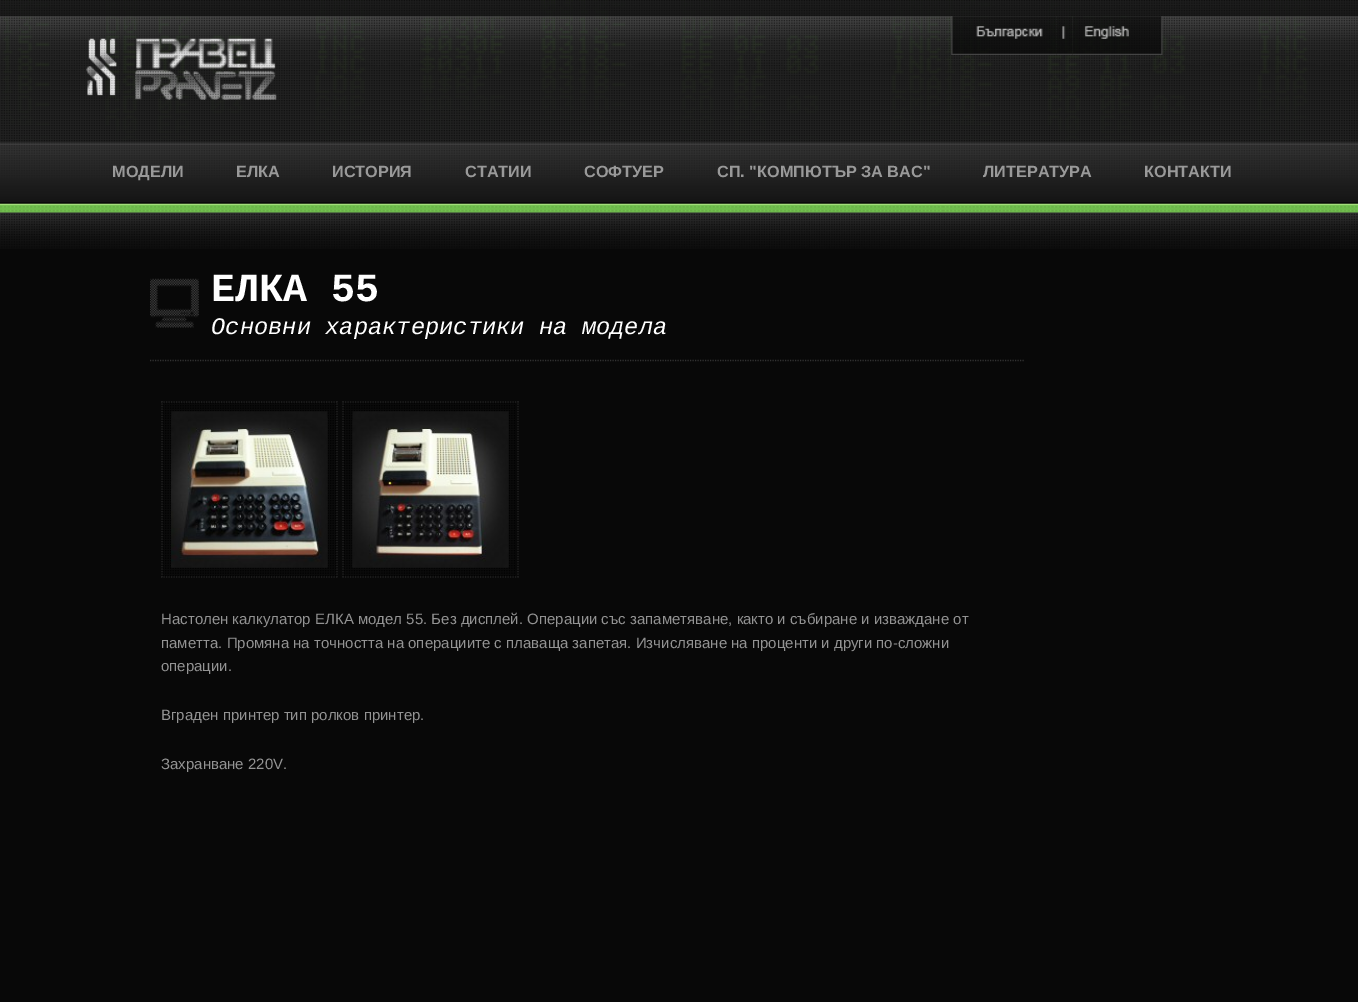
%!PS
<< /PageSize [1358 1002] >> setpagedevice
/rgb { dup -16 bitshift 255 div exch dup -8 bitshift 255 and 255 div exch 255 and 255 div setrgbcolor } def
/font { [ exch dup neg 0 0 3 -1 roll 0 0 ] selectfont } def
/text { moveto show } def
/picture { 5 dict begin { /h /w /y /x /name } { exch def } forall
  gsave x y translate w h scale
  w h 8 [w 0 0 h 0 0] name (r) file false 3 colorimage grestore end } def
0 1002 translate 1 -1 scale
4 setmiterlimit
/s1 { /LiberationSans-Bold 16.25 font 16#999999 rgb } def
/s2 { /LiberationMono-Bold 40 font 16#FFFFFF rgb } def
/s3 { /LiberationMono-Italic 23.75 font 16#FFFFFF rgb } def
/s4 { /LiberationSans-Regular 15 font 16#939393 rgb } def
16#080808 rgb
0 0 1358 1002 rectfill
(pic1.raw) 0 0 1358 249 picture
(pic2.raw) 86 38 191 62 picture
(pic3.raw) 951 16 106 39 picture
(pic4.raw) 1056 16 17 39 picture
(pic5.raw) 1072 16 91 39 picture
s1
(МОДЕЛИ) 112 177 text
(ЕЛКА) 236 177 text
(ИСТОРИЯ) 332 177 text
(СТАТИИ) 465 177 text
(СОФТУЕР) 584 177 text
(СП. "КОМПЮТЪР ЗА ВАС") 717 177 text
(ЛИТЕРАТУРА) 983 177 text
(КОНТАКТИ) 1144 177 text
(pic6.raw) 150 278 49 50 picture
s2
(ЕЛКА 55) 211 301 text
16#323232 rgb
1.2 setlinewidth
[1.25 1.25] 0 setdash
150 360.5 moveto 1025 360.5 lineto stroke
s3
(Основни характеристики на модела) 211 334 text
16#212121 rgb
161 402 moveto 337.5 402 lineto stroke
337 401 moveto 337 577.5 lineto stroke
161 577 moveto 337.5 577 lineto stroke
162 401 moveto 162 577.5 lineto stroke
342.5 402 moveto 519 402 lineto stroke
(pic7.raw) 163 403 173 173 picture
518 401 moveto 518 577.5 lineto stroke
342.5 577 moveto 519 577 lineto stroke
343 401 moveto 343 577.5 lineto stroke
(pic8.raw) 344 403 171 173 picture
(pic9.raw) 171 418 157 150 picture
(pic10.raw) 352 420 156 148 picture
s4
(Настолен калкулатор ЕЛКА модел 55. Без дисплей. Операции със запаметяване, както и събиране и изваждане от) 161 624 text
(паметта. Промяна на точността на операциите с плаваща запетая. Изчисляване на проценти и други по-сложни) 161 648 text
(операции.) 161 671 text
(Вграден принтер тип ролков принтер.) 161 720 text
(Захранване 220V.) 161 769 text
showpage
